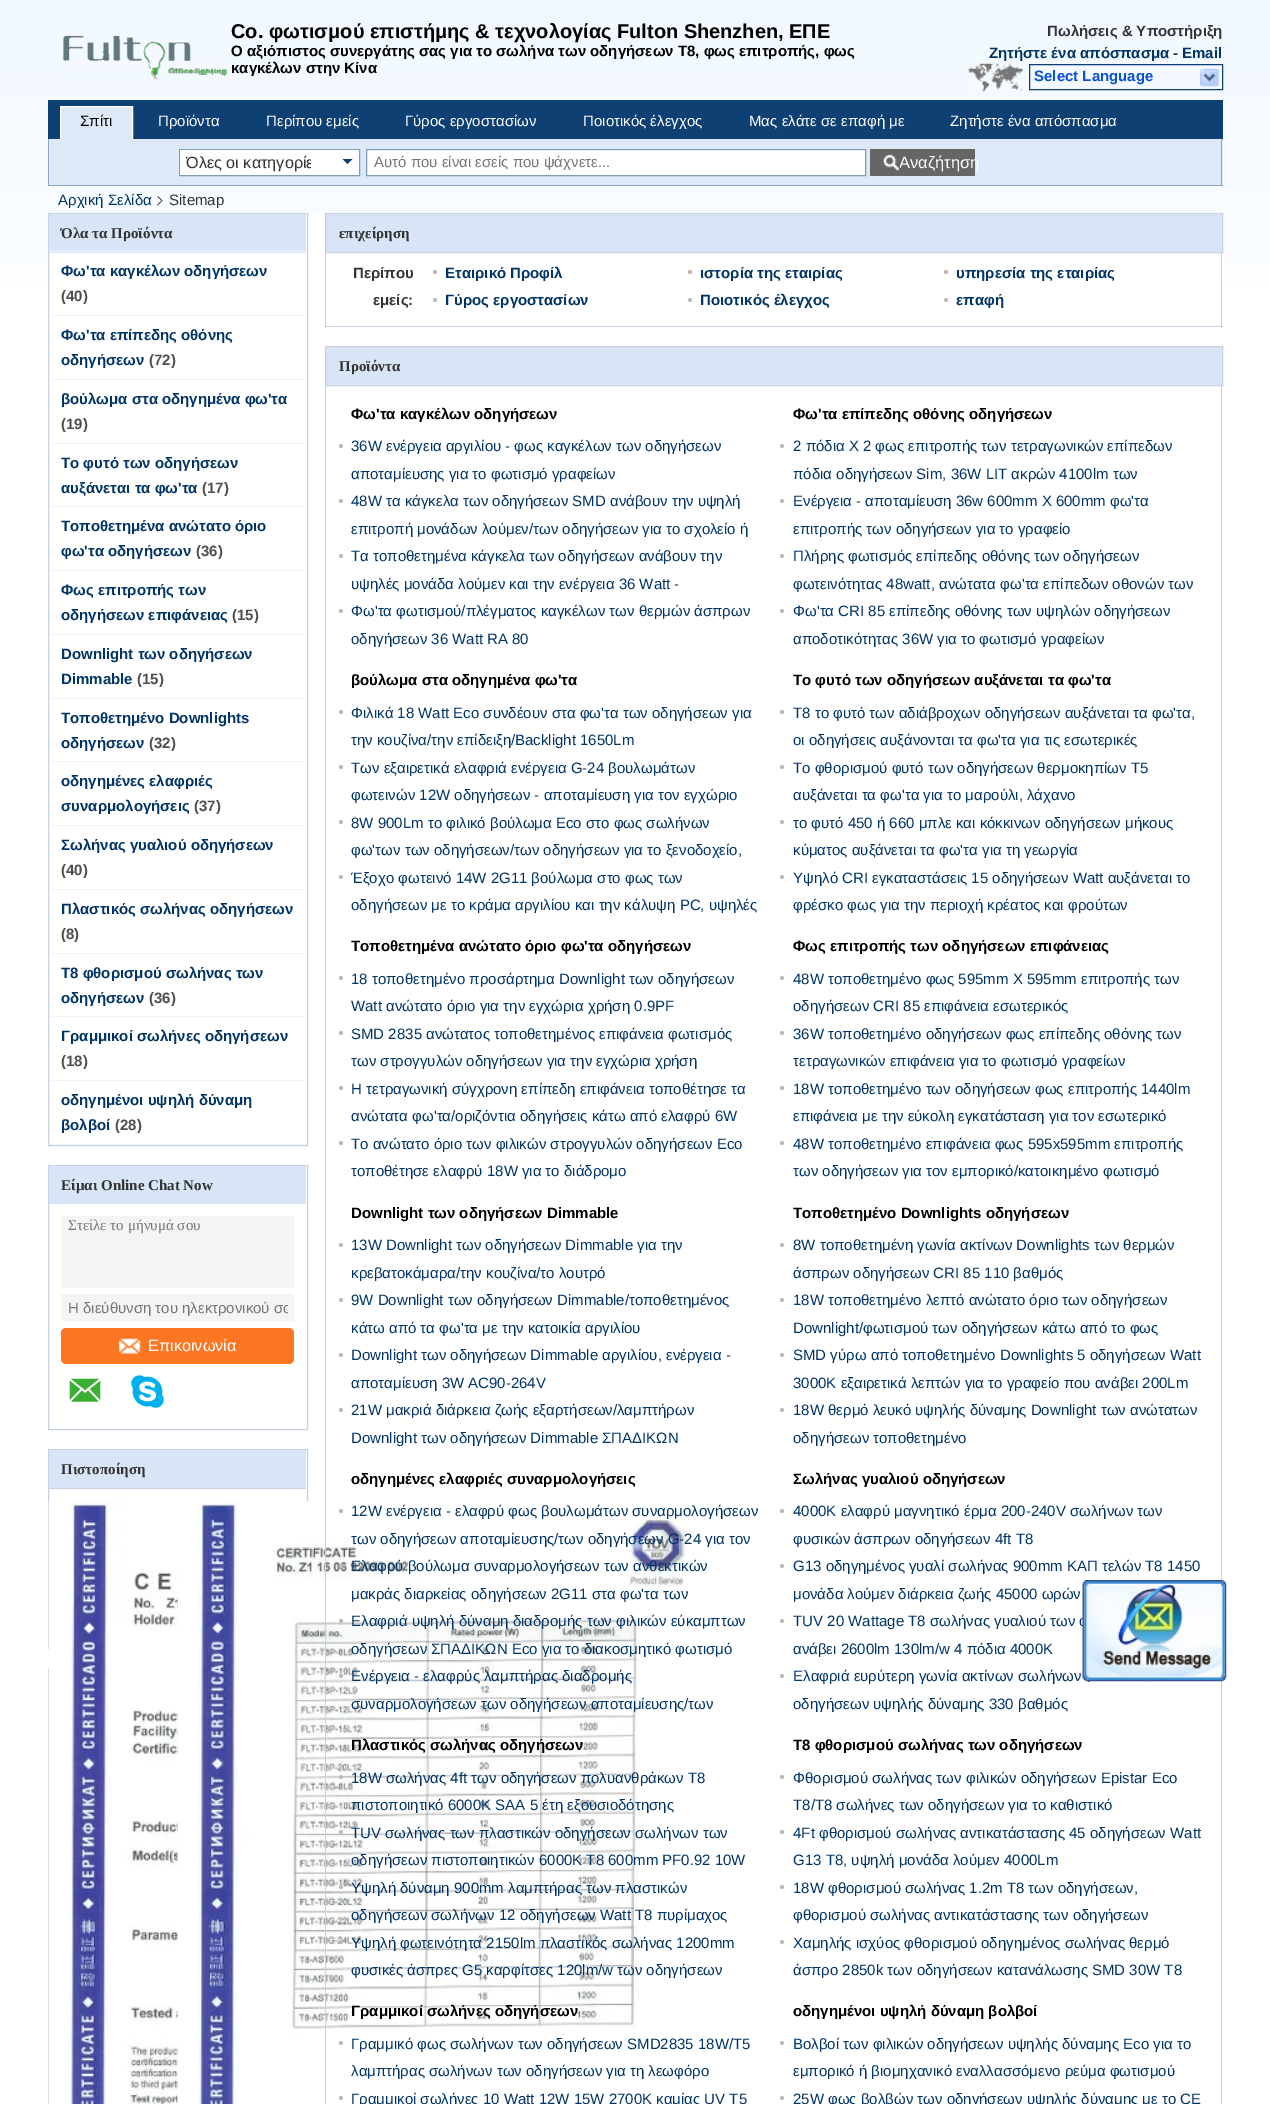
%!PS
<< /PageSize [1270 2104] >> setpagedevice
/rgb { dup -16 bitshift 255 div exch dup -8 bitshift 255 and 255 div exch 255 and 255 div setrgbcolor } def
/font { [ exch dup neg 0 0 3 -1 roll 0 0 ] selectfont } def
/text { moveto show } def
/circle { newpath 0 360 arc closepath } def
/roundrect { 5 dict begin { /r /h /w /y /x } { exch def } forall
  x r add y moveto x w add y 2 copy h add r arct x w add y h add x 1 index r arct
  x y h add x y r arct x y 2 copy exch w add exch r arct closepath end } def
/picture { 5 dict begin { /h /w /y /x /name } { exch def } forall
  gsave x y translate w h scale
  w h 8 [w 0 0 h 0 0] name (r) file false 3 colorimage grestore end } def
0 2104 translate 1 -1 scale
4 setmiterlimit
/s1 { /LiberationSans-Bold 20 font 16#000000 rgb } def
/s2 { /LiberationSans-Bold 15 font 16#000000 rgb } def
/s3 { /LiberationSans-Bold 15 font 16#333333 rgb } def
/s4 { /LiberationSans-Bold 15 font 16#003366 rgb } def
/s5 { /LiberationSans-Bold 15 font 16#0750D9 rgb } def
/s6 { /LiberationSans-Regular 15 font 16#000000 rgb } def
/s7 { /LiberationSans-Regular 15 font 16#FFFFFF rgb } def
/s8 { /LiberationSans-Regular 16.25 font 16#333333 rgb } def
/s9 { /LiberationSans-Regular 15 font 16#757575 rgb } def
/s10 { /LiberationSans-Regular 16.5 font 16#FFFFFF rgb } def
/s11 { /LiberationSans-Regular 15 font 16#003366 rgb } def
/s12 { /LiberationSans-Regular 15 font 16#333333 rgb } def
/s13 { /LiberationSerif-Bold 15 font 16#333333 rgb } def
/s14 { /LiberationSans-Bold 15 font 16#4E4E4E rgb } def
/s15 { /LiberationSerif-Regular 15 font 16#757575 rgb } def
/s16 { /LiberationSans-Regular 16.25 font 16#FFFFFF rgb } def
16#FFFFFF rgb
0 0 1270 2104 rectfill
gsave 0 0 moveto 1270 0 lineto 1270 288 lineto 0 288 lineto closepath clip newpath
<< /ShadingType 2 /ColorSpace /DeviceRGB /Coords [635 0 635 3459] /Extend [true true] /Function << /FunctionType 3 /Domain [0 1] /Functions [<< /FunctionType 2 /Domain [0 1] /C0 [0.941 0.973 1] /C1 [1 1 1] /N 1 >> << /FunctionType 2 /Domain [0 1] /C0 [1 1 1] /C1 [1 1 1] /N 1 >>] /Bounds [0.1] /Encode [0 1 0 1] >> >> shfill grestore
(pic1.raw) 63 35 164 45 picture
s1
(Co. φωτισμού επιστήμης & τεχνολογίας Fulton Shenzhen, ΕΠΕ) 231 38 text
s2
(Ο αξιόπιστος συνεργάτης σας για το σωλήνα των οδηγήσεων T8, φως επιτροπής, φως) 231 56 text
(καγκέλων στην Κίνα) 231 73 text
s3
(Πωλήσεις & Υποστήριξη) 1047 36 text
s4
(Ζητήστε ένα απόσπασμα) 989 58 text
s3
(-) 1173 58 text
s4
(Email) 1182 58 text
(pic2.raw) 968 63 55 29 picture
16#0E4074 rgb
1029.5 64.5 193 25 rectstroke
s5
(Select Language) 1034 81 text
(pic3.raw) 1200 68 19 19 picture
16#DDE9F6 rgb
49 139 1174 46 rectfill
16#8EA6C1 rgb
1221 138 1 48 rectfill
48 185 1175 1 rectfill
48 138 1 48 rectfill
16#0E4074 rgb
48 100 1175 39 rectfill
16#DDE9F6 rgb
61 107 71 32 rectfill
gsave
48 100 1175 39 rectclip
16#FFFFFF rgb
60.5 106.5 72 49 rectstroke
grestore
s6
(Σπίτι) 80 126 text
s7
(Προϊόντα) 158 126 text
(Περίπου εμείς) 266 126 text
(Γύρος εργοστασίων) 405 126 text
(Ποιοτικός έλεγχος) 583 126 text
(Μας ελάτε σε επαφή με) 749 126 text
(Ζητήστε ένα απόσπασμα) 950 126 text
16#7F9DB9 rgb
179.5 149.5 180 26 rectstroke
16#FFFFFF rgb
180 150 179 25 rectfill
gsave
186 150 125 25 rectclip
s8
(Όλες οι κατηγορίε) 186 168 text
grestore
16#0E4074 rgb
342.5 159 moveto 352.5 159 lineto 347.5 164 lineto closepath fill
16#FFFFFF rgb
366.5 149.5 moveto 865.5 149.5 lineto 865.5 175.5 lineto 366.5 175.5 lineto closepath gsave fill grestore
16#7F9DB9 rgb
stroke
s9
(Αυτό που είναι εσείς που ψάχνετε...) 374 167 text
16#666666 rgb
870 149 105 27 rectfill
s10
(Αναζήτηση) 899 168 text
16#666666 rgb
899 166 1 2 rectfill
(pic4.raw) 883 154 16 17 picture
s11
(Αρχική Σελίδα) 58 205 text
(pic5.raw) 157 196 6 10 picture
s12
(Sitemap) 169 205 text
16#FFFFFF rgb
48 213 1175 75 rectfill
16#C6D2E0 rgb
48.5 213.5 259 932 rectstroke
16#D8E5F6 rgb
49 214 257 39 rectfill
16#E7F3FF rgb
49 251 257 1 rectfill
s13
(Όλα τα Προϊόντα) 61 238 text
16#F0F4F6 rgb
49 315 257 1 rectfill
s4
(Φω'τα καγκέλων οδηγήσεων) 61 276 text
s14
(\(40\)) 61 301 text
16#F0F4F6 rgb
49 379 257 1 rectfill
s4
(Φω'τα επίπεδης οθόνης) 61 340 text
(οδηγήσεων) 61 365 text
s14
(\(72\)) 149 365 text
16#F0F4F6 rgb
49 443 257 1 rectfill
s4
(βούλωμα στα οδηγημένα φω'τα) 61 404 text
s14
(\(19\)) 61 429 text
16#F0F4F6 rgb
49 506 257 1 rectfill
s4
(Το φυτό των οδηγήσεων) 61 468 text
(αυξάνεται τα φω'τα) 61 493 text
s14
(\(17\)) 202 493 text
16#F0F4F6 rgb
49 570 257 1 rectfill
s4
(Τοποθετημένα ανώτατο όριο) 61 531 text
(φω'τα οδηγήσεων) 61 556 text
s14
(\(36\)) 196 556 text
16#F0F4F6 rgb
49 634 257 1 rectfill
s4
(Φως επιτροπής των) 61 595 text
(οδηγήσεων επιφάνειας) 61 620 text
s14
(\(15\)) 232 620 text
16#F0F4F6 rgb
49 698 257 1 rectfill
s4
(Downlight των οδηγήσεων) 61 659 text
(Dimmable) 61 684 text
s14
(\(15\)) 137 684 text
16#F0F4F6 rgb
49 761 257 1 rectfill
s4
(Τοποθετημένο Downlights) 61 723 text
(οδηγήσεων) 61 748 text
s14
(\(32\)) 149 748 text
16#F0F4F6 rgb
49 825 257 1 rectfill
s4
(οδηγημένες ελαφριές) 61 786 text
(συναρμολογήσεις) 61 811 text
s14
(\(37\)) 194 811 text
16#F0F4F6 rgb
49 889 257 1 rectfill
s4
(Σωλήνας γυαλιού οδηγήσεων) 61 850 text
s14
(\(40\)) 61 875 text
16#F0F4F6 rgb
49 953 257 1 rectfill
s4
(Πλαστικός σωλήνας οδηγήσεων) 61 914 text
s14
(\(8\)) 61 939 text
16#F0F4F6 rgb
49 1016 257 1 rectfill
s4
(T8 φθορισμού σωλήνας των) 61 978 text
(οδηγήσεων) 61 1003 text
s14
(\(36\)) 149 1003 text
16#F0F4F6 rgb
49 1080 257 1 rectfill
s4
(Γραμμικοί σωλήνες οδηγήσεων) 61 1041 text
s14
(\(18\)) 61 1066 text
16#F0F4F6 rgb
49 1144 257 1 rectfill
s4
(οδηγημένοι υψηλή δύναμη) 61 1105 text
(βολβοί) 61 1130 text
s14
(\(28\)) 115 1130 text
16#C6D2E0 rgb
48.5 1165.5 259 264 rectstroke
16#D8E5F6 rgb
49 1166 257 38 rectfill
s13
(Είμαι Online Chat Now) 61 1190 text
16#F4F4F4 rgb
61 1216 233 72 rectfill
s15
(Στείλε το μήνυμά σου) 68 1230 text
16#F4F4F4 rgb
61 1294 233 27 rectfill
gsave
68 1300 220 18 rectclip
s9
(Η διεύθυνση του ηλεκτρονικού σο) 68 1313 text
grestore
16#FD7722 rgb
61 1328 233 36 5 roundrect fill
(pic6.raw) 119 1338 22 16 picture
s16
(Επικοινωνία) 148 1351 text
(pic7.raw) 69 1378 32 24 picture
(pic8.raw) 131 1375 33 33 picture
16#C6D2E0 rgb
48.5 1449.5 259 199 rectstroke
16#D8E5F6 rgb
49 1450 257 38 rectfill
16#C6D2E0 rgb
49 1488 257 1 rectfill
s13
(Πιστοποίηση) 61 1474 text
16#C6D2E0 rgb
48.5 1668.5 259 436 rectstroke
(pic9.raw) 48 1501 511 603 picture
(pic10.raw) 177 1501 510 603 picture
16#D8E5F6 rgb
325.5 213.5 moveto 1222.5 213.5 lineto 1222.5 252.5 lineto 325.5 252.5 lineto closepath gsave fill grestore
16#C6D2E0 rgb
stroke
s13
(επιχείρηση) 339 238 text
16#C6D2E0 rgb
1221 253 1 75 rectfill
325 326 898 1 rectfill
325 253 1 75 rectfill
s3
(Περίπου) 353 278 text
(εμείς:) 373 305 text
16#BBBBBB rgb
435 272 2 circle fill
s4
(Εταιρικό Προφίλ) 445 278 text
16#BBBBBB rgb
690 272 2 circle fill
s4
(ιστορία της εταιρίας) 700 278 text
16#BBBBBB rgb
946 272 2 circle fill
s4
(υπηρεσία της εταιρίας) 956 278 text
16#BBBBBB rgb
435 300 2 circle fill
s4
(Γύρος εργοστασίων) 445 305 text
16#BBBBBB rgb
690 300 2 circle fill
s4
(Ποιοτικός έλεγχος) 700 305 text
16#BBBBBB rgb
946 300 2 circle fill
s4
(επαφή) 956 305 text
16#D8E5F6 rgb
325.5 346.5 moveto 1222.5 346.5 lineto 1222.5 385.5 lineto 325.5 385.5 lineto closepath gsave fill grestore
16#C6D2E0 rgb
stroke
s13
(Προϊόντα) 339 371 text
16#C6D2E0 rgb
1221 386 1 1718 rectfill
325 386 1 1718 rectfill
s2
(Φω'τα καγκέλων οδηγήσεων) 351 419 text
16#BBBBBB rgb
341 446 2 circle fill
s11
(36W ενέργεια αργιλίου - φως καγκέλων των οδηγήσεων) 351 451 text
(αποταμίευσης για το φωτισμό γραφείων) 351 479 text
16#BBBBBB rgb
341 501 2 circle fill
s11
(48W τα κάγκελα των οδηγήσεων SMD ανάβουν την υψηλή) 351 506 text
(επιτροπή μονάδων λούμεν/των οδηγήσεων για το σχολείο ή) 351 534 text
16#BBBBBB rgb
341 556 2 circle fill
s11
(Τα τοποθετημένα κάγκελα των οδηγήσεων ανάβουν την) 351 561 text
(υψηλές μονάδα λούμεν και την ενέργεια 36 Watt -) 351 589 text
16#BBBBBB rgb
341 611 2 circle fill
s11
(Φω'τα φωτισμού/πλέγματος καγκέλων των θερμών άσπρων) 351 616 text
(οδηγήσεων 36 Watt RA 80) 351 644 text
s2
(Φω'τα επίπεδης οθόνης οδηγήσεων) 793 419 text
16#BBBBBB rgb
782 446 2 circle fill
s11
(2 πόδια Χ 2 φως επιτροπής των τετραγωνικών επίπεδων) 793 451 text
(πόδια οδηγήσεων Sim, 36W LIT ακρών 4100lm των) 793 479 text
16#BBBBBB rgb
782 501 2 circle fill
s11
(Ενέργεια - αποταμίευση 36w 600mm X 600mm φω'τα) 793 506 text
(επιτροπής των οδηγήσεων για το γραφείο) 793 534 text
16#BBBBBB rgb
782 556 2 circle fill
s11
(Πλήρης φωτισμός επίπεδης οθόνης των οδηγήσεων) 793 561 text
(φωτεινότητας 48watt, ανώτατα φω'τα επίπεδων οθονών των) 793 589 text
16#BBBBBB rgb
782 611 2 circle fill
s11
(Φω'τα CRI 85 επίπεδης οθόνης των υψηλών οδηγήσεων) 793 616 text
(αποδοτικότητας 36W για το φωτισμό γραφείων) 793 644 text
s2
(βούλωμα στα οδηγημένα φω'τα) 351 685 text
16#BBBBBB rgb
341 712 2 circle fill
s11
(Φιλικά 18 Watt Eco συνδέουν στα φω'τα των οδηγήσεων για) 351 718 text
(την κουζίνα/την επίδειξη/Backlight 1650Lm) 351 745 text
16#BBBBBB rgb
341 767 2 circle fill
s11
(Των εξαιρετικά ελαφριά ενέργεια G-24 βουλωμάτων) 351 773 text
(φωτεινών 12W οδηγήσεων - αποταμίευση για τον εγχώριο) 351 800 text
16#BBBBBB rgb
341 822 2 circle fill
s11
(8W 900Lm το φιλικό βούλωμα Eco στο φως σωλήνων) 351 828 text
(φω'των των οδηγήσεων/των οδηγήσεων για το ξενοδοχείο,) 351 855 text
16#BBBBBB rgb
341 877 2 circle fill
s11
(Έξοχο φωτεινό 14W 2G11 βούλωμα στο φως των) 351 883 text
(οδηγήσεων με το κράμα αργιλίου και την κάλυψη PC, υψηλές) 351 910 text
s2
(Το φυτό των οδηγήσεων αυξάνεται τα φω'τα) 793 685 text
16#BBBBBB rgb
782 712 2 circle fill
s11
(T8 το φυτό των αδιάβροχων οδηγήσεων αυξάνεται τα φω'τα,) 793 718 text
(οι οδηγήσεις αυξάνονται τα φω'τα για τις εσωτερικές) 793 745 text
16#BBBBBB rgb
782 767 2 circle fill
s11
(Το φθορισμού φυτό των οδηγήσεων θερμοκηπίων T5) 793 773 text
(αυξάνεται τα φω'τα για το μαρούλι, λάχανο) 793 800 text
16#BBBBBB rgb
782 822 2 circle fill
s11
(το φυτό 450 ή 660 μπλε και κόκκινων οδηγήσεων μήκους) 793 828 text
(κύματος αυξάνεται τα φω'τα για τη γεωργία) 793 855 text
16#BBBBBB rgb
782 877 2 circle fill
s11
(Υψηλό CRI εγκαταστάσεις 15 οδηγήσεων Watt αυξάνεται το) 793 883 text
(φρέσκο φως για την περιοχή κρέατος και φρούτων) 793 910 text
s2
(Τοποθετημένα ανώτατο όριο φω'τα οδηγήσεων) 351 951 text
16#BBBBBB rgb
341 978 2 circle fill
s11
(18 τοποθετημένο προσάρτημα Downlight των οδηγήσεων) 351 984 text
(Watt ανώτατο όριο για την εγχώρια χρήση 0.9PF) 351 1011 text
16#BBBBBB rgb
341 1033 2 circle fill
s11
(SMD 2835 ανώτατος τοποθετημένος επιφάνεια φωτισμός) 351 1039 text
(των στρογγυλών οδηγήσεων για την εγχώρια χρήση) 351 1066 text
16#BBBBBB rgb
341 1088 2 circle fill
s11
(Η τετραγωνική σύγχρονη επίπεδη επιφάνεια τοποθέτησε τα) 351 1094 text
(ανώτατα φω'τα/οριζόντια οδηγήσεις κάτω από ελαφρύ 6W) 351 1121 text
16#BBBBBB rgb
341 1143 2 circle fill
s11
(Το ανώτατο όριο των φιλικών στρογγυλών οδηγήσεων Eco) 351 1149 text
(τοποθέτησε ελαφρύ 18W για το διάδρομο) 351 1176 text
s2
(Φως επιτροπής των οδηγήσεων επιφάνειας) 793 951 text
16#BBBBBB rgb
782 978 2 circle fill
s11
(48W τοποθετημένο φως 595mm X 595mm επιτροπής των) 793 984 text
(οδηγήσεων CRI 85 επιφάνεια εσωτερικός) 793 1011 text
16#BBBBBB rgb
782 1033 2 circle fill
s11
(36W τοποθετημένο οδηγήσεων φως επίπεδης οθόνης των) 793 1039 text
(τετραγωνικών επιφάνεια για το φωτισμό γραφείων) 793 1066 text
16#BBBBBB rgb
782 1088 2 circle fill
s11
(18W τοποθετημένο των οδηγήσεων φως επιτροπής 1440lm) 793 1094 text
(επιφάνεια με την εύκολη εγκατάσταση για τον εσωτερικό) 793 1121 text
16#BBBBBB rgb
782 1143 2 circle fill
s11
(48W τοποθετημένο επιφάνεια φως 595x595mm επιτροπής) 793 1149 text
(των οδηγήσεων για τον εμπορικό/κατοικημένο φωτισμό) 793 1176 text
s2
(Downlight των οδηγήσεων Dimmable) 351 1218 text
16#BBBBBB rgb
341 1245 2 circle fill
s11
(13W Downlight των οδηγήσεων Dimmable για την) 351 1250 text
(κρεβατοκάμαρα/την κουζίνα/το λουτρό) 351 1278 text
16#BBBBBB rgb
341 1300 2 circle fill
s11
(9W Downlight των οδηγήσεων Dimmable/τοποθετημένος) 351 1305 text
(κάτω από τα φω'τα με την κατοικία αργιλίου) 351 1333 text
16#BBBBBB rgb
341 1355 2 circle fill
s11
(Downlight των οδηγήσεων Dimmable αργιλίου, ενέργεια -) 351 1360 text
(αποταμίευση 3W AC90-264V) 351 1388 text
16#BBBBBB rgb
341 1410 2 circle fill
s11
(21W μακριά διάρκεια ζωής εξαρτήσεων/λαμπτήρων) 351 1415 text
(Downlight των οδηγήσεων Dimmable ΣΠΑΔΙΚΩΝ) 351 1443 text
s2
(Τοποθετημένο Downlights οδηγήσεων) 793 1218 text
16#BBBBBB rgb
782 1245 2 circle fill
s11
(8W τοποθετημένη γωνία ακτίνων Downlights των θερμών) 793 1250 text
(άσπρων οδηγήσεων CRI 85 110 βαθμός) 793 1278 text
16#BBBBBB rgb
782 1300 2 circle fill
s11
(18W τοποθετημένο λεπτό ανώτατο όριο των οδηγήσεων) 793 1305 text
(Downlight/φωτισμού των οδηγήσεων κάτω από το φως) 793 1333 text
16#BBBBBB rgb
782 1355 2 circle fill
s11
(SMD γύρω από τοποθετημένο Downlights 5 οδηγήσεων Watt) 793 1360 text
(3000K εξαιρετικά λεπτών για το γραφείο που ανάβει 200Lm) 793 1388 text
16#BBBBBB rgb
782 1410 2 circle fill
s11
(18W θερμό λευκό υψηλής δύναμης Downlight των ανώτατων) 793 1415 text
(οδηγήσεων τοποθετημένο) 793 1443 text
s2
(οδηγημένες ελαφριές συναρμολογήσεις) 351 1484 text
16#BBBBBB rgb
341 1511 2 circle fill
s11
(12W ενέργεια - ελαφρύ φως βουλωμάτων συναρμολογήσεων) 351 1516 text
(των οδηγήσεων αποταμίευσης/των οδηγήσεων G-24 για τον) 351 1544 text
16#BBBBBB rgb
341 1566 2 circle fill
s11
(Ελαφρύ βούλωμα συναρμολογήσεων των ανθεκτικών) 351 1571 text
(μακράς διαρκείας οδηγήσεων 2G11 στα φω'τα των) 351 1599 text
16#BBBBBB rgb
341 1621 2 circle fill
s11
(Ελαφριά υψηλή δύναμη διαδρομής των φιλικών εύκαμπτων) 351 1626 text
(οδηγήσεων ΣΠΑΔΙΚΩΝ Eco για το διακοσμητικό φωτισμό) 351 1654 text
16#BBBBBB rgb
341 1676 2 circle fill
s11
(Ενέργεια - ελαφρύς λαμπτήρας διαδρομής) 351 1681 text
(συναρμολογήσεων των οδηγήσεων αποταμίευσης/των) 351 1709 text
s2
(Σωλήνας γυαλιού οδηγήσεων) 793 1484 text
16#BBBBBB rgb
782 1511 2 circle fill
s11
(4000K ελαφρύ μαγνητικό έρμα 200-240V σωλήνων των) 793 1516 text
(φυσικών άσπρων οδηγήσεων 4ft T8) 793 1544 text
16#BBBBBB rgb
782 1566 2 circle fill
s11
(G13 οδηγημένος γυαλί σωλήνας 900mm ΚΑΠ τελών T8 1450) 793 1571 text
(μονάδα λούμεν διάρκεια ζωής 45000 ωρών) 793 1599 text
16#BBBBBB rgb
782 1621 2 circle fill
s11
(TUV 20 Wattage T8 σωλήνας γυαλιού των ο) 793 1626 text
(ανάβει 2600lm 130lm/w 4 πόδια 4000K) 793 1654 text
16#BBBBBB rgb
782 1676 2 circle fill
s11
(Ελαφριά ευρύτερη γωνία ακτίνων σωλήνων) 793 1681 text
(οδηγήσεων υψηλής δύναμης 330 βαθμός) 793 1709 text
s2
(Πλαστικός σωλήνας οδηγήσεων) 351 1750 text
16#BBBBBB rgb
341 1777 2 circle fill
s11
(18W σωλήνας 4ft των οδηγήσεων πολυανθράκων T8) 351 1783 text
(πιστοποιητικό 6000K SAA 5 έτη εξουσιοδότησης) 351 1810 text
16#BBBBBB rgb
341 1832 2 circle fill
s11
(TUV σωλήνας των πλαστικών οδηγήσεων σωλήνων των) 351 1838 text
(οδηγήσεων πιστοποιητικών 6000K T8 600mm PF0.92 10W) 351 1865 text
16#BBBBBB rgb
341 1887 2 circle fill
s11
(Υψηλή δύναμη 900mm λαμπτήρας των πλαστικών) 351 1893 text
(οδηγήσεων σωλήνων 12 οδηγήσεων Watt T8 πυρίμαχος) 351 1920 text
16#BBBBBB rgb
341 1942 2 circle fill
s11
(Υψηλή φωτεινότητα 2150lm πλαστικός σωλήνας 1200mm) 351 1948 text
(φυσικές άσπρες G5 καρφίτσες 120lm/w των οδηγήσεων) 351 1975 text
s2
(T8 φθορισμού σωλήνας των οδηγήσεων) 793 1750 text
16#BBBBBB rgb
782 1777 2 circle fill
s11
(Φθορισμού σωλήνας των φιλικών οδηγήσεων Epistar Eco) 793 1783 text
(T8/T8 σωλήνες των οδηγήσεων για το καθιστικό) 793 1810 text
16#BBBBBB rgb
782 1832 2 circle fill
s11
(4Ft φθορισμού σωλήνας αντικατάστασης 45 οδηγήσεων Watt) 793 1838 text
(G13 T8, υψηλή μονάδα λούμεν 4000Lm) 793 1865 text
16#BBBBBB rgb
782 1887 2 circle fill
s11
(18W φθορισμού σωλήνας 1.2m T8 των οδηγήσεων,) 793 1893 text
(φθορισμού σωλήνας αντικατάστασης των οδηγήσεων) 793 1920 text
16#BBBBBB rgb
782 1942 2 circle fill
s11
(Χαμηλής ισχύος φθορισμού οδηγημένος σωλήνας θερμό) 793 1948 text
(άσπρο 2850k των οδηγήσεων κατανάλωσης SMD 30W T8) 793 1975 text
s2
(Γραμμικοί σωλήνες οδηγήσεων) 351 2016 text
16#BBBBBB rgb
341 2043 2 circle fill
s11
(Γραμμικό φως σωλήνων των οδηγήσεων SMD2835 18W/T5) 351 2049 text
(λαμπτήρας σωλήνων των οδηγήσεων για τη λεωφόρο) 351 2076 text
16#BBBBBB rgb
341 2098 2 circle fill
s11
(Γραμμικοί σωλήνες 10 Watt 12W 15W 2700K καμίας UV T5) 351 2104 text
s2
(οδηγημένοι υψηλή δύναμη βολβοί) 793 2016 text
16#BBBBBB rgb
782 2043 2 circle fill
s11
(Βολβοί των φιλικών οδηγήσεων υψηλής δύναμης Eco για το) 793 2049 text
(εμπορικό ή βιομηχανικό εναλλασσόμενο ρεύμα φωτισμού) 793 2076 text
16#BBBBBB rgb
782 2098 2 circle fill
s11
(25W φως βολβών των οδηγήσεων υψηλής δύναμης με το CE) 793 2104 text
(pic11.raw) 1082 1580 145 102 picture
showpage
